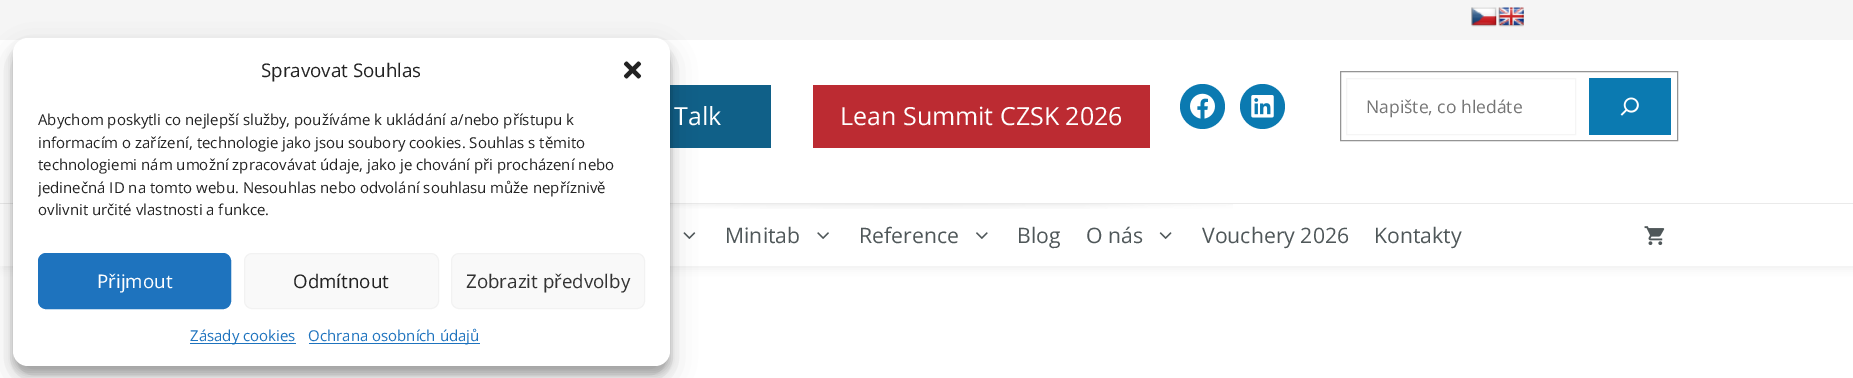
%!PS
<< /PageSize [1853 378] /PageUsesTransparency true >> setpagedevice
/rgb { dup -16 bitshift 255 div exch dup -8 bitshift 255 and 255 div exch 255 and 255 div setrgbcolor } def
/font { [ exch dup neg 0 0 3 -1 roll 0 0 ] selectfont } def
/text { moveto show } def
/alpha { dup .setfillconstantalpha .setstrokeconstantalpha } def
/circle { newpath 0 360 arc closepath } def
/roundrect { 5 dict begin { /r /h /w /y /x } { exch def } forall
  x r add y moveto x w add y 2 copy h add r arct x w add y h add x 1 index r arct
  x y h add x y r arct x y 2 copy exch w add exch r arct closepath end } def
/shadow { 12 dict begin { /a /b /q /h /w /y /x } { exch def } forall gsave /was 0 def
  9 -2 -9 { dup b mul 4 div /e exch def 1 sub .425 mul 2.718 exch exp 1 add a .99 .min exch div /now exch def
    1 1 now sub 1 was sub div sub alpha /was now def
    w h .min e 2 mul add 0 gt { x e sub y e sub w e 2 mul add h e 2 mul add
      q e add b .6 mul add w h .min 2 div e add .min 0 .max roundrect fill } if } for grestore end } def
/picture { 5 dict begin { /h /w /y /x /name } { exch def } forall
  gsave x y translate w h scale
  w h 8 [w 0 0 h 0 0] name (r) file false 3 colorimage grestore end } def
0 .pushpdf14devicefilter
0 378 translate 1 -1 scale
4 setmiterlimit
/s1 { /OpenSans-Regular 18.75 font 16#222222 rgb } def
/s2 { /OpenSans-Regular 15 font 16#222222 rgb } def
/s3 { /OpenSans-Regular 18.75 font 16#FFFFFF rgb } def
/s4 { /OpenSans-Regular 18.75 font 16#333333 rgb } def
/s5 { /OpenSans-Regular 15 font 16#1E73BE rgb } def
/s6 { /OpenSans-Regular 25 font 16#FFFFFF rgb } def
/s7 { /OpenSans-Regular 17.5 font 16#757575 rgb } def
/s8 { /OpenSans-Regular 21.25 font 16#4F5759 rgb } def
16#FFFFFF rgb
0 0 1853 378 rectfill
16#F5F5F5 rgb
0 0 1853 40 rectfill
(pic1.raw) 1471 7 26 20 picture
(pic2.raw) 1498 7 26 20 picture
gsave
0 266 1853 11 rectclip
16#EFEFEF rgb
3 205 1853 64 0 4 1 shadow
grestore
16#FFFFFF rgb
7 201 1845 1 rectfill
16#106088 rgb
670 85 101 63 rectfill
(pic7.raw) 670 204 563 5 picture
16#EAEAEA rgb
0 203 1853 1 rectfill
16#000000 rgb
13 45 657 329 15 4 0.23 shadow
(pic8.raw) 683 232 13 7 picture
13 50 657 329 15 12.5 0.19 shadow
16#FFFFFF rgb
13 38 657 328 15 roundrect fill
s1
(Spravovat Souhlas) 261 77 text
(pic3.raw) 623 61 19 18 picture
s2
(Abychom poskytli co nejlepší služby, používáme k ukládání a/nebo přístupu k) 38 125 text
(informacím o zařízení, technologie jako jsou soubory cookies. Souhlas s těmito) 38 148 text
(technologiemi nám umožní zpracovávat údaje, jako je chování při procházení nebo) 38 170 text
gsave
38 109 607 119 rectclip
(jedinečná ID na tomto webu. Nesouhlas nebo odvolání souhlasu může nepříznivě) 38 193 text
grestore
(ovlivnit určité vlastnosti a funkce.) 38 215 text
16#1E73BE rgb
38.5 253.5 192 55 7.5 roundrect gsave fill grestore
stroke
s3
(Přijmout) 97 288 text
16#F9F9F9 rgb
244.5 253.5 194 55 7.5 roundrect gsave fill grestore
16#F2F2F2 rgb
stroke
s1
(Odmítnout) 293 288 text
16#F9F9F9 rgb
451.5 253.5 193 55 7.5 roundrect gsave fill grestore
16#F2F2F2 rgb
stroke
s4
(Zobrazit předvolby) 466 288 text
16#1E73BE rgb
190 343 106 1 rectfill
s5
(Zásady cookies) 190 341 text
309 343 171 1 rectfill
(Ochrana osobních údajů) 308 341 text
s6
(Talk) 674 125 text
16#BC2B32 rgb
813 85 337 63 rectfill
s6
(Lean Summit CZSK 2026) 840 125 text
16#0B7AB1 rgb
1202.5 106.5 22.5 circle fill
(pic4.raw) 1190 93 25 26 picture
1262.5 106.5 22.5 circle fill
(pic5.raw) 1251 95 23 23 picture
16#949494 rgb
1340.5 71.5 337 69 rectstroke
16#F5F5F5 rgb
1346.5 78.5 229 56 rectstroke
s7
(Napište, co hledáte) 1366 113 text
16#0B7AB1 rgb
1589 78 82 57 rectfill
(pic6.raw) 1620 97 19 19 picture
s8
(Minitab) 725 243 text
(pic9.raw) 817 232 12 7 picture
(Reference) 859 243 text
(pic10.raw) 976 232 12 7 picture
(Blog) 1017 243 text
(O nás) 1086 243 text
(pic11.raw) 1159 232 13 7 picture
(Vouchery 2026) 1202 243 text
(Kontakty) 1374 243 text
(pic12.raw) 1644 226 21 20 picture
.poppdf14devicefilter showpage
